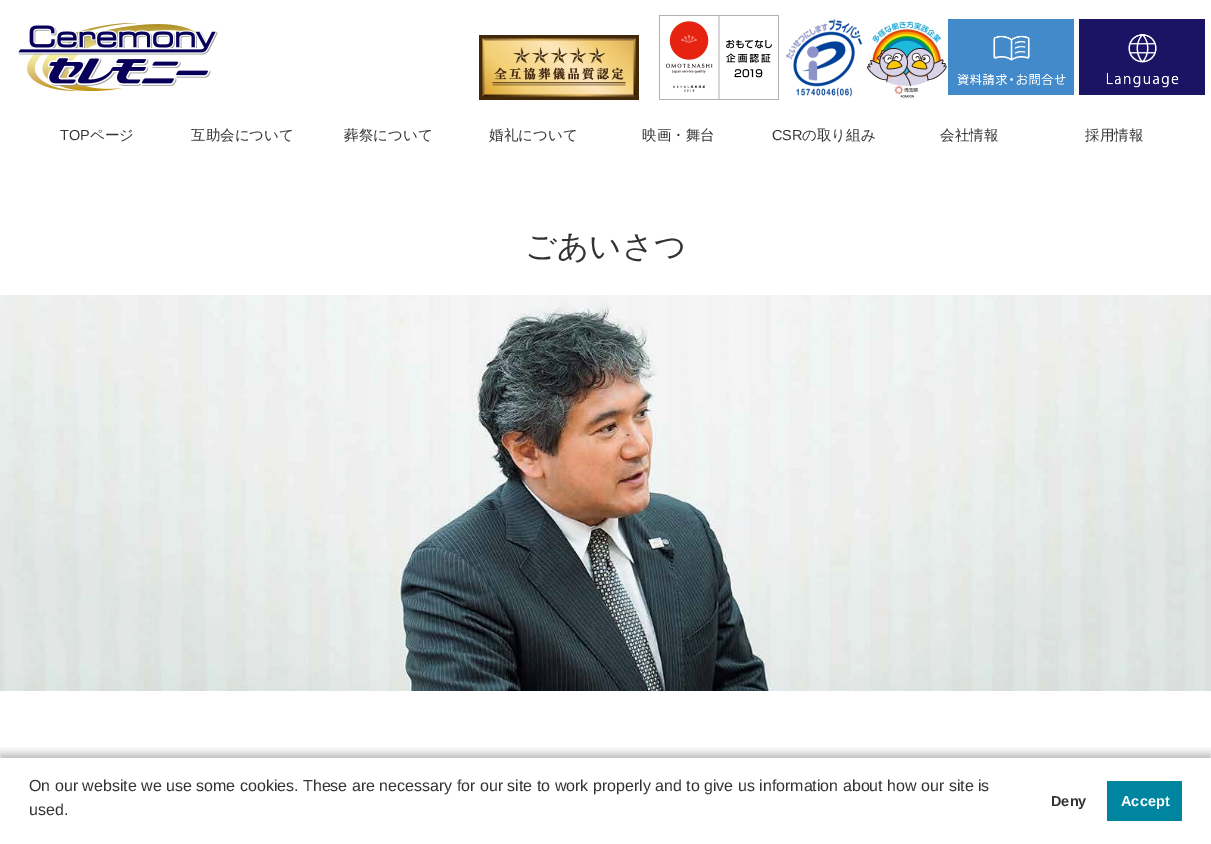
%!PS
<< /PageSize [1211 844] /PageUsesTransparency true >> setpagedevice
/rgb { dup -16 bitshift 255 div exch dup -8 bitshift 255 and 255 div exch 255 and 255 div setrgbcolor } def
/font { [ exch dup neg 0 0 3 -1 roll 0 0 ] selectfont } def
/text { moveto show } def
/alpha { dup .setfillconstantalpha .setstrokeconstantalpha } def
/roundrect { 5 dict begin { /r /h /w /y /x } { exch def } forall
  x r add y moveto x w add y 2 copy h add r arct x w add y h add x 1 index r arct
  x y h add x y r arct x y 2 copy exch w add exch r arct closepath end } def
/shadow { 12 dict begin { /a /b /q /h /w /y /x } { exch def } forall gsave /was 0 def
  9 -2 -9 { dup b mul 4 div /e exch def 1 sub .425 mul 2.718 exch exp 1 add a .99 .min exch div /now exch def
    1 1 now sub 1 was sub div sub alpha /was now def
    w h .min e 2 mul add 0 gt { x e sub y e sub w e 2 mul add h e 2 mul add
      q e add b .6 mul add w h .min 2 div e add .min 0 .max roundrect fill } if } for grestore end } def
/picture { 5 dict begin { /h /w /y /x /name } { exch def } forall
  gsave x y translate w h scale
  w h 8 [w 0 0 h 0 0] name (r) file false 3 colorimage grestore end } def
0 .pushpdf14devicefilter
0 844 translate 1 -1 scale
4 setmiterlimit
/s1 { /LiberationSans-Regular 14.5 font 16#333333 rgb } def
/s2 { /WenQuanYiZenHei-Medium 14.5 font 16#333333 rgb } def
/s3 { /WenQuanYiZenHei-Medium 31.5 font 16#333333 rgb } def
/s4 { /LiberationSans-Regular 16 font 16#333333 rgb } def
/s5 { /LiberationSans-Bold 14.5 font 16#333333 rgb } def
/s6 { /LiberationSans-Bold 14.5 font 16#FFFFFF rgb } def
16#FFFFFF rgb
0 0 1211 844 rectfill
(pic1.raw) 18 23 200 68 picture
(pic2.raw) 479 35 160 65 picture
(pic3.raw) 659 15 120 85 picture
(pic4.raw) 785 18 78 79 picture
(pic5.raw) 866 16 82 83 picture
(pic6.raw) 948 19 126 76 picture
(pic7.raw) 1079 19 126 76 picture
s1
(TOP) 60 140 text
s2
(ページ) 90 140 text
(互助会について) 191 140 text
(葬祭について) 344 140 text
(婚礼について) 489 140 text
(映画・舞台) 642 140 text
s1
(CSR) 772 140 text
s2
(の取り組み) 802 140 text
(会社情報) 940 140 text
(採用情報) 1085 140 text
s3
(ごあいさつ) 525 257 text
(pic8.raw) 0 295 1211 396 picture
gsave
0 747 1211 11 rectclip
16#000000 rgb
0 754 1211 86 0 5 0.3 shadow
grestore
s4
(On our website we use some cookies. These are necessary for our site to work properly and to give us information about how our site is) 29 791 text
(used.) 29 815 text
s5
(Deny) 1051 806 text
16#0085A1 rgb
1107 781 75 40 rectfill
s6
(Accept) 1121 806 text
.poppdf14devicefilter showpage
